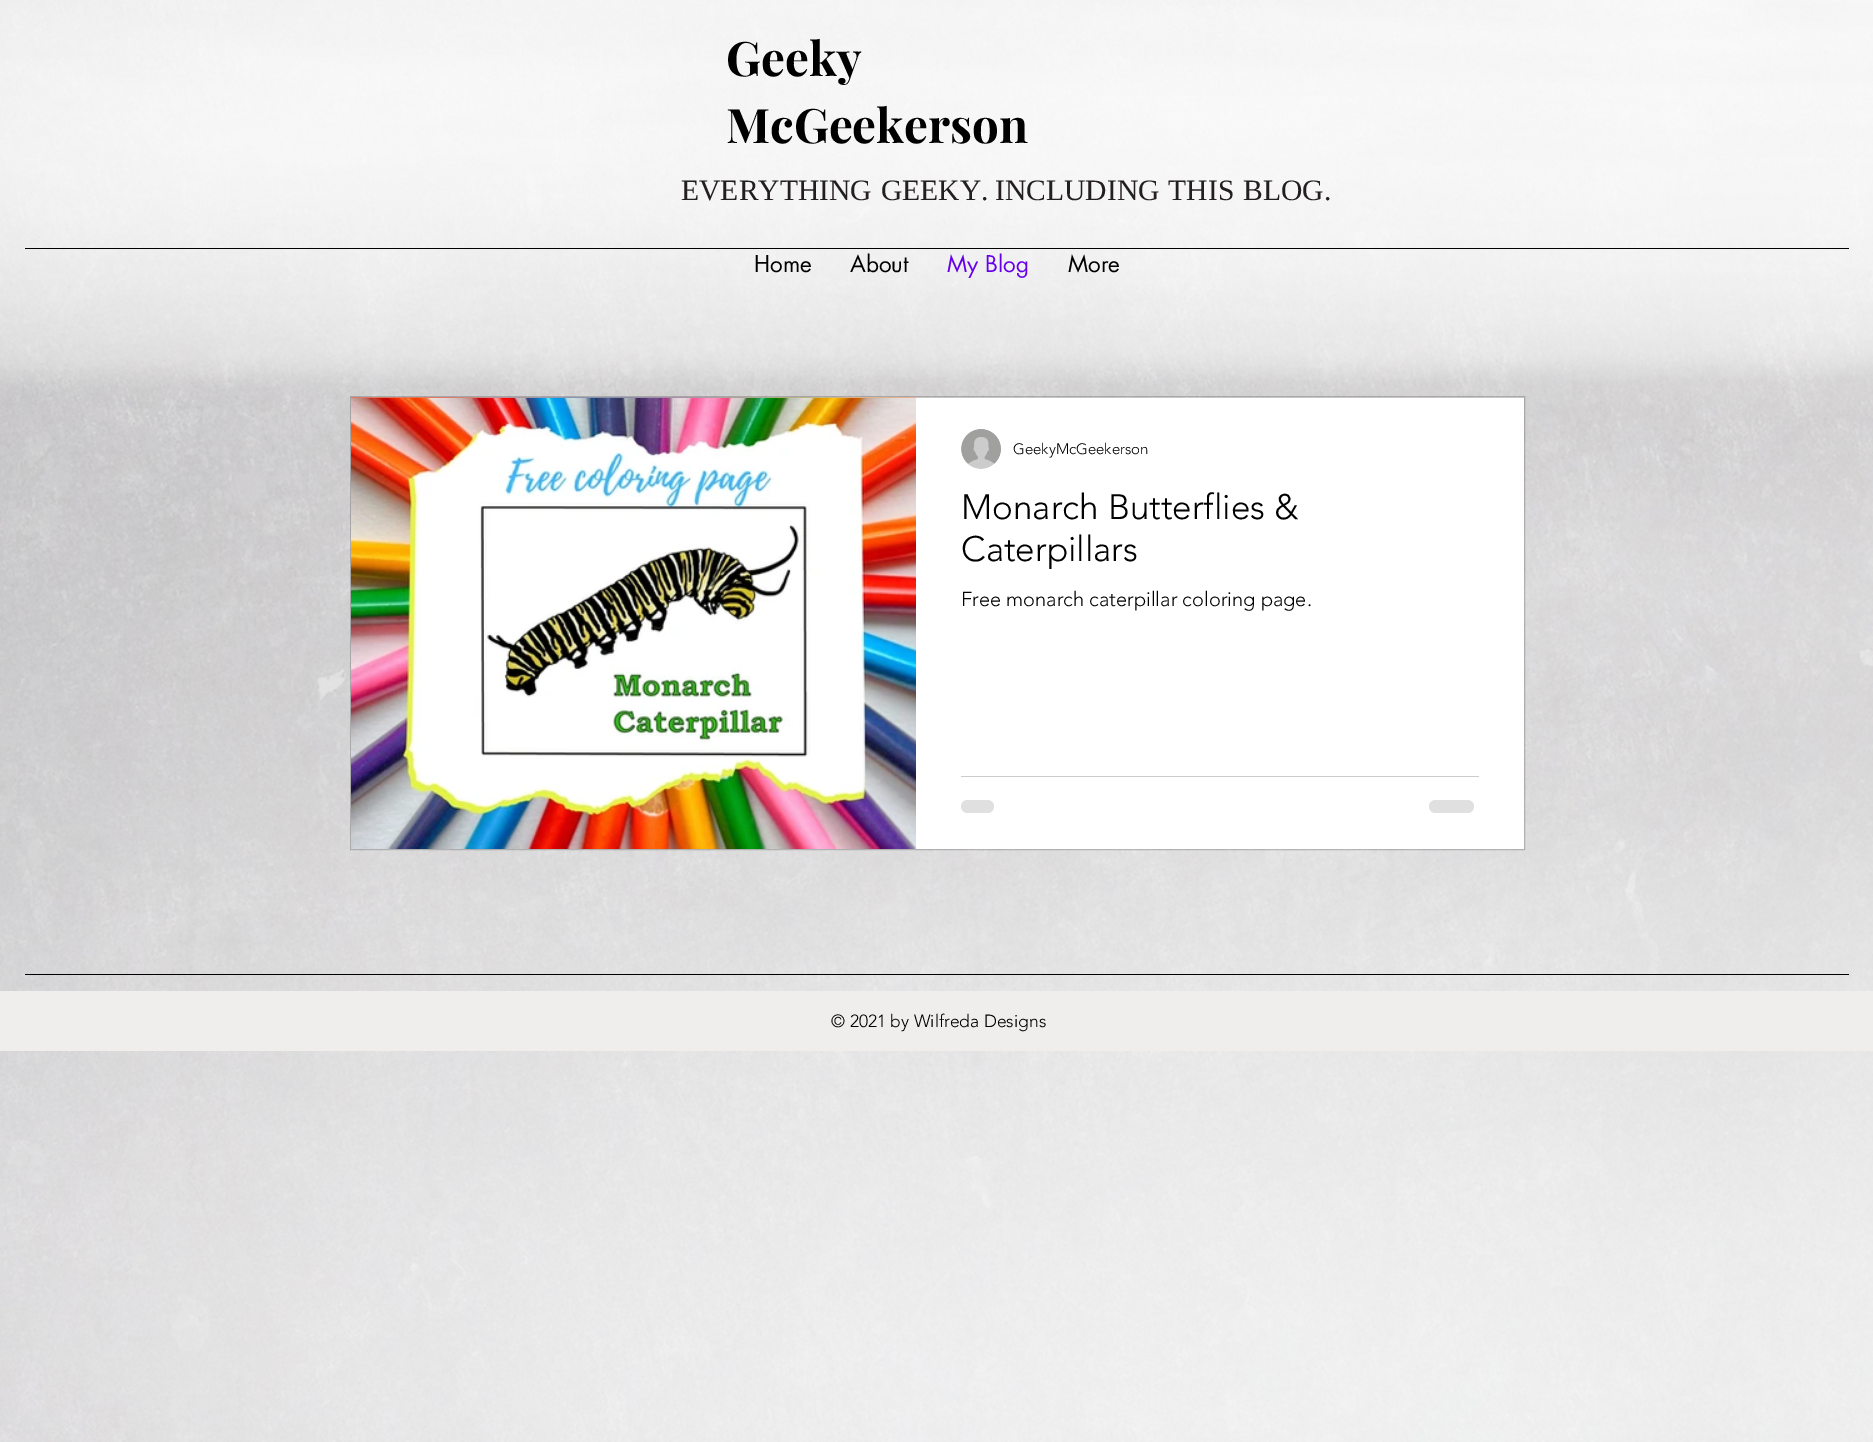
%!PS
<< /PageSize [1873 1442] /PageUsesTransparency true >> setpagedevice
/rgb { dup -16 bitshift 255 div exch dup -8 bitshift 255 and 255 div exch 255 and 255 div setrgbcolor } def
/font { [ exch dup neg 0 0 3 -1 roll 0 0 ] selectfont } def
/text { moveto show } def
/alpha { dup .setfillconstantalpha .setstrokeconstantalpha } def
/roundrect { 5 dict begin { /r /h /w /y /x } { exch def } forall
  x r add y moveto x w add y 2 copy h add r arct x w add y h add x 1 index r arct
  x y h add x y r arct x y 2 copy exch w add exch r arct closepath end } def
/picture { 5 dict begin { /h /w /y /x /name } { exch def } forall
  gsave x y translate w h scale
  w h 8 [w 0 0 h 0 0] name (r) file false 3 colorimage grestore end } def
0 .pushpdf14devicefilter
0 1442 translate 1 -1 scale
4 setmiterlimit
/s1 { /PlayfairDisplay-Bold 47.5 font 16#000000 rgb } def
/s2 { /futura-Regular 22.5 font 16#000000 rgb } def
/s3 { /futura-Regular 22.5 font 16#6600EA rgb } def
/s4 { /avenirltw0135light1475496-Light 15 font 16#000000 rgb } def
/s5 { /avenirltw0135light1475496-Light 35 font 16#000000 rgb } def
/s6 { /avenirltw0135light1475496-Light 20 font 16#000000 rgb } def
/s7 { /avenirltw0135light1475496-Light 17.5 font 16#000000 rgb } def
16#FFFFFF rgb
0 0 1873 1442 rectfill
(pic1.raw) 0 0 1873 1442 picture
s1
(Geeky) 726 76 text
(McGeekerson) 726 143 text
/LiberationSerif-Regular 29.6 font
16#231F20 rgb
681 200 moveto 1.5 0 32 (EVERYTHING GEEKY.) widthshow
995 200 moveto 1.5 0 32 (INCLUDING THIS BLOG.) widthshow
16#000000 rgb
25 248 1824 1 rectfill
s2
(Home) 754 272 text
(About) 850 272 text
s3
(My Blog) 947 272 text
s2
(More) 1068 272 text
0.2 alpha
350.5 396.5 1174 453 rectstroke
1 alpha
(pic2.raw) 351 397 567 1 picture
(pic3.raw) 351 398 565 451 picture
16#FFFFFF rgb
916 398 608 451 rectfill
(pic4.raw) 961 429 40 40 picture
s4
(GeekyMcGeekerson) 1013 454 text
s5
(Monarch Butterflies &) 961 519 text
(Caterpillars) 961 561 text
s6
(Free monarch caterpillar coloring page.) 961 606 text
16#CCCCCC rgb
961 776 518 1 rectfill
16#E0E0E0 rgb
961 800 33 13 6.5 roundrect fill
1429 800 45 13 6.5 roundrect fill
16#000000 rgb
25 974 1824 1 rectfill
16#F0EDED rgb
0 991 1873 60 rectfill
s7
(© 2021 by Wilfreda Designs) 831 1027 text
.poppdf14devicefilter showpage
